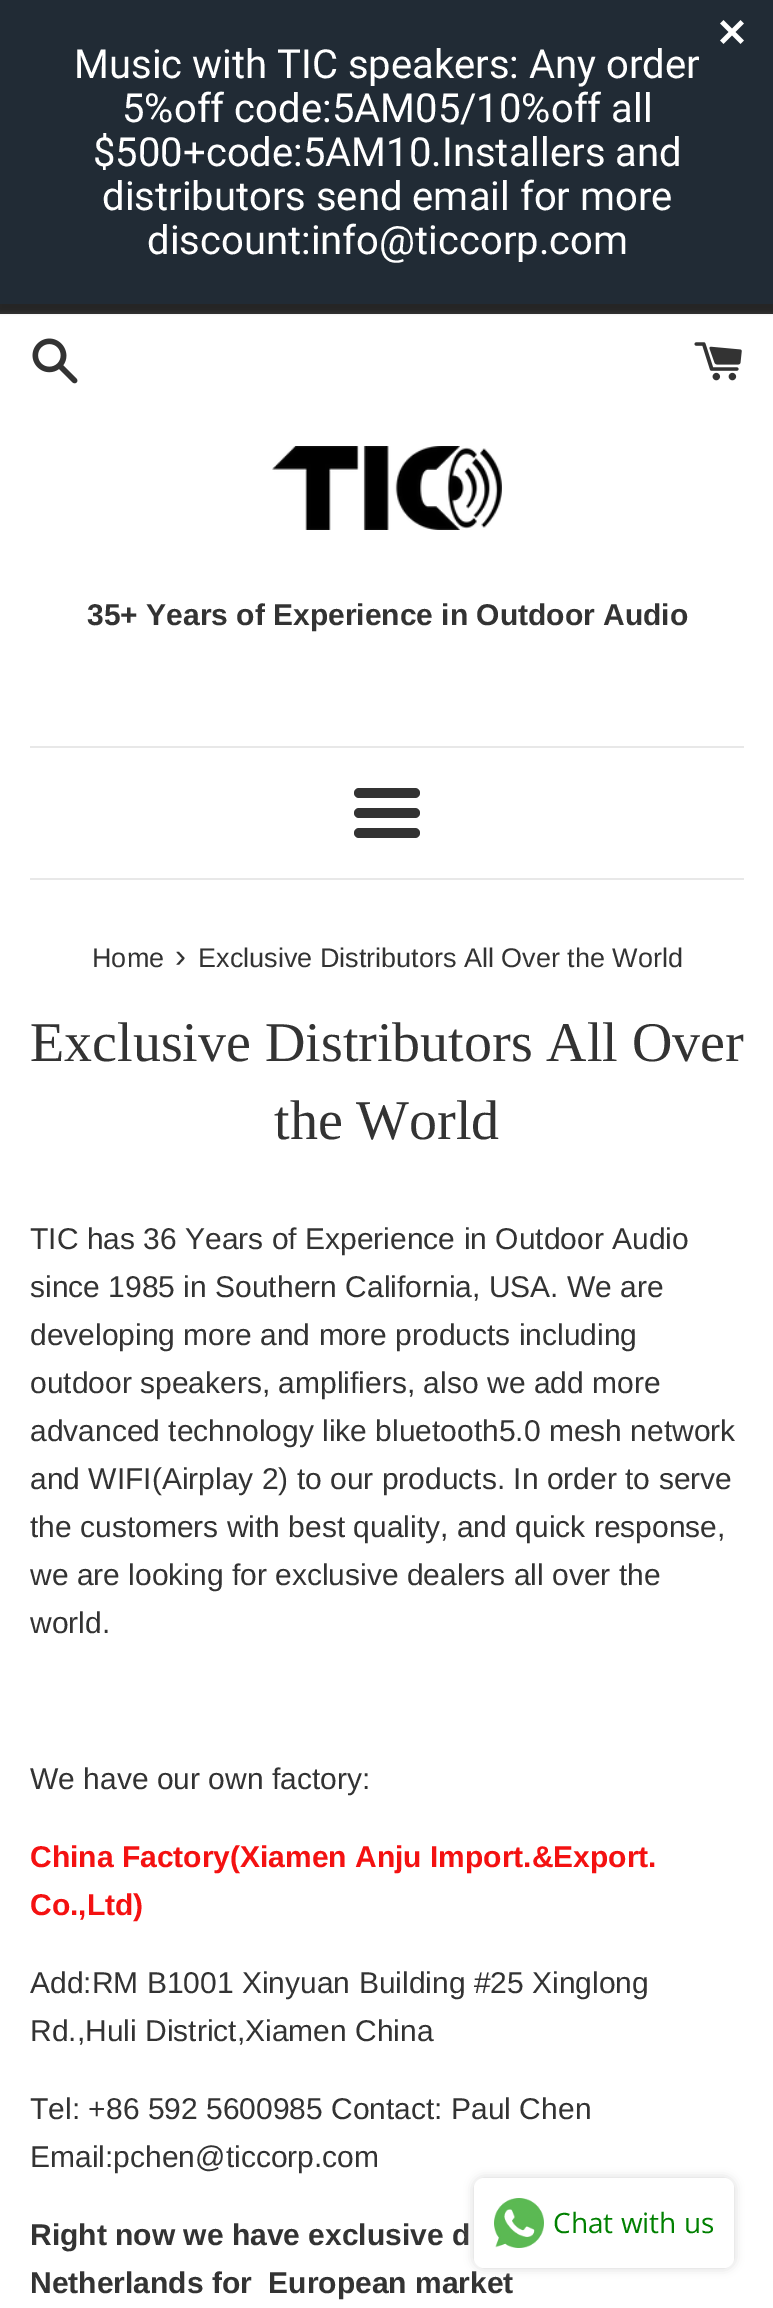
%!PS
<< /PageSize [773 2308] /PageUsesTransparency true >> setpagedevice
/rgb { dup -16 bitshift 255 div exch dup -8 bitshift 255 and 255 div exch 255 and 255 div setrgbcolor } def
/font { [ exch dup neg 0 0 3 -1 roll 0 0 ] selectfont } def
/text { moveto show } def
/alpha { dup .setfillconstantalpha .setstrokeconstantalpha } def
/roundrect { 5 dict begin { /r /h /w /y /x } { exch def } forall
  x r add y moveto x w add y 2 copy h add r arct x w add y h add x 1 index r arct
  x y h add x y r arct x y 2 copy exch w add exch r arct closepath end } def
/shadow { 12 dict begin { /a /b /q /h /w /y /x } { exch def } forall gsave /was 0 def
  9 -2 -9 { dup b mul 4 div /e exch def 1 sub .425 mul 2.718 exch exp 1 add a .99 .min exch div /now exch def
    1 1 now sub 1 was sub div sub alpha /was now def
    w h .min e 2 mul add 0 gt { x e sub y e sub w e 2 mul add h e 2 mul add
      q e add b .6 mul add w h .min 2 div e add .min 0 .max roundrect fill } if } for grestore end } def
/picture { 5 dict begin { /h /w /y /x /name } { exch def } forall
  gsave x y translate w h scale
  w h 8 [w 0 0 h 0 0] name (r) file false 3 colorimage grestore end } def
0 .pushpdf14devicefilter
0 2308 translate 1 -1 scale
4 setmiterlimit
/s1 { /Roboto-Regular 40 font 16#FFFFFF rgb } def
/s2 { /LiberationSans-Bold 30 font 16#333333 rgb } def
/s3 { /LiberationSans-Regular 27 font 16#333333 rgb } def
/s4 { /LiberationSans-Regular 33 font 16#333333 rgb } def
/s5 { /LiberationSerif-Regular 56 font 16#333333 rgb } def
/s6 { /LiberationSans-Regular 30 font 16#333333 rgb } def
/s7 { /LiberationSans-Bold 30 font 16#F41111 rgb } def
/s8 { /OpenSans-Regular 28 font 16#008000 rgb } def
16#FFFFFF rgb
0 0 773 2308 rectfill
16#333333 rgb
0 304 773 10 rectfill
16#000000 rgb
-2 4 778 308 0 2 0.3 shadow
16#212B35 rgb
0 0 773 304 rectfill
(pic1.raw) 720 20 24 24 picture
s1
(Music with TIC speakers: Any order) 74 78 text
(5%off code:5AM05/10%off all) 122 122 text
($500+code:5AM10.Installers and) 93 166 text
(distributors send email for more) 102 210 text
(discount:info@ticcorp.com) 147 254 text
(pic2.raw) 32 338 46 46 picture
(pic3.raw) 694 342 48 39 picture
(pic4.raw) 272 446 230 84 picture
s2
(35+ Years of Experience in Outdoor Audio) 87 625 text
16#E8E8E8 rgb
30 746 714 2 rectfill
16#333333 rgb
354 788 66 10 5 roundrect fill
354 808 66 10 5 roundrect fill
354 828 66 10 5 roundrect fill
16#E8E8E8 rgb
30 878 714 2 rectfill
s3
(Home) 92 967 text
s4
(›) 175 967 text
s3
(Exclusive Distributors All Over the World) 198 967 text
s5
(Exclusive Distributors All Over) 30 1061 text
(the World) 274 1139 text
s6
(TIC has 36 Years of Experience in Outdoor Audio) 30 1249 text
(since 1985 in Southern California, USA. We are) 30 1297 text
(developing more and more products including) 30 1345 text
(outdoor speakers, amplifiers, also we add more) 30 1393 text
(advanced technology like bluetooth5.0 mesh network) 30 1441 text
(and WIFI\(Airplay 2\) to our products. In order to serve) 30 1489 text
(the customers with best quality, and quick response,) 30 1537 text
(we are looking for exclusive dealers all over the) 30 1585 text
(world.) 30 1633 text
(We have our own factory:) 30 1789 text
s7
(China Factory\(Xiamen Anju Import.&Export.) 30 1867 text
(Co.,Ltd\)) 30 1915 text
s6
(Add:RM B1001 Xinyuan Building #25 Xinglong) 30 1993 text
(Rd.,Huli District,Xiamen China) 30 2041 text
(Tel: +86 592 5600985 Contact: Paul Chen) 30 2119 text
(Email:pchen@ticcorp.com) 30 2167 text
s2
(Right now we have exclusive d) 30 2245 text
(Netherlands for  European market) 30 2293 text
16#D3D3D3 rgb
474 2178 260 90 10 5 1 shadow
16#FFFFFF rgb
474 2178 260 90 10 roundrect fill
(pic5.raw) 494 2198 50 50 picture
s8
(Chat with us) 553 2233 text
.poppdf14devicefilter showpage
